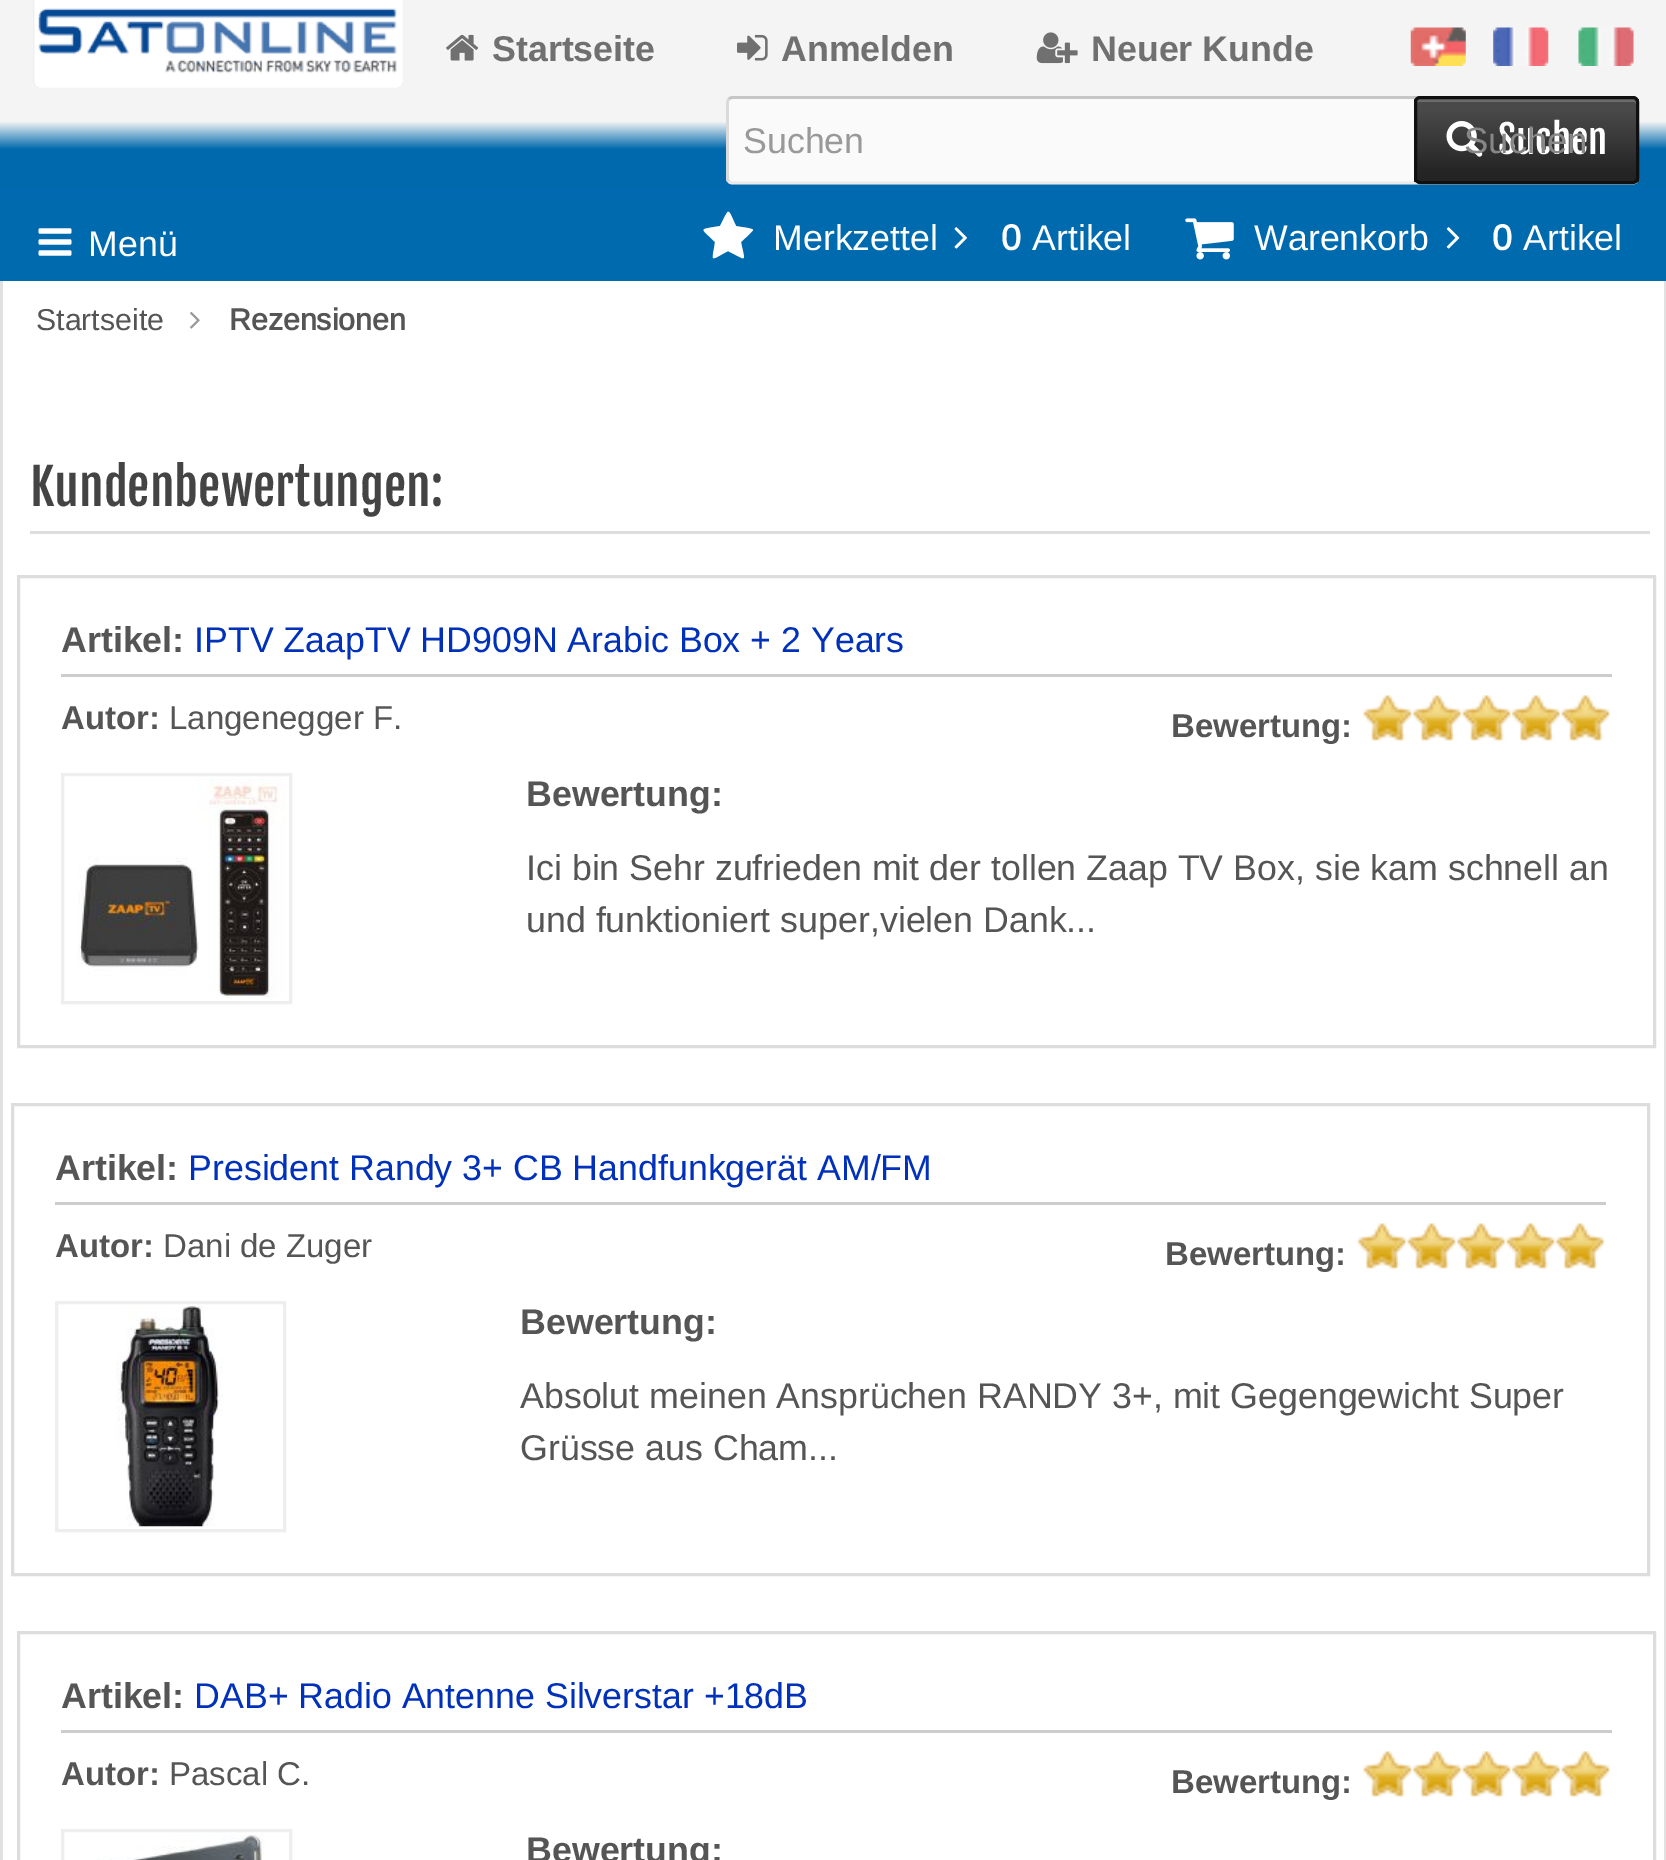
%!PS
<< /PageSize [1666 1860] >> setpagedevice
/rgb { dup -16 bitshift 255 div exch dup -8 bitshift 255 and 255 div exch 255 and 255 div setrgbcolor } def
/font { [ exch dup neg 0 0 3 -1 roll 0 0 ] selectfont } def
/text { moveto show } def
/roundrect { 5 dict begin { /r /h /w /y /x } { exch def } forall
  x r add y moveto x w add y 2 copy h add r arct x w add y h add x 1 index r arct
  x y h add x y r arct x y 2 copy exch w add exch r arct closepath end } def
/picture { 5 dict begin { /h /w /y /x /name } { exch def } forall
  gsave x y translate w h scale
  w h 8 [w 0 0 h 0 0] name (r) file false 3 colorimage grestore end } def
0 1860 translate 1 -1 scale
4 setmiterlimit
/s1 { /Arimo-Bold 35.75 font 16#707070 rgb } def
/s2 { /Arimo-Regular 35.75 font 16#999999 rgb } def
/s3 { /FjallaOne-Regular 38.5 font 16#FFFFFF rgb } def
/s4 { /LiberationSans-Regular 36.5 font 16#878787 rgb } def
/s5 { /Arimo-Regular 35.75 font 16#FFFFFF rgb } def
/s6 { /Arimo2-Bold 35.75 font 16#FFFFFF rgb } def
/s7 { /Arimo-Regular 30.25 font 16#555555 rgb } def
/s8 { /Arimo2-Bold 30.25 font 16#555555 rgb } def
/s9 { /FjallaOne-Regular 49.5 font 16#444444 rgb } def
/s10 { /Arimo-Bold 35.75 font 16#555555 rgb } def
/s11 { /Arimo-Regular 35.75 font 16#0131BA rgb } def
/s12 { /Arimo-Bold 33 font 16#555555 rgb } def
/s13 { /Arimo-Regular 33 font 16#555555 rgb } def
/s14 { /Arimo-Regular 35.75 font 16#555555 rgb } def
16#F4F4F4 rgb
0 0 1666 1860 rectfill
(pic1.raw) 446 34 33 27 picture
s1
(Startseite) 492 61 text
(pic2.raw) 737 34 31 27 picture
(Anmelden) 781 61 text
(pic3.raw) 1036 32 42 32 picture
(Neuer Kunde) 1091 61 text
(pic4.raw) 1410 27 56 39 picture
(pic5.raw) 1493 27 56 39 picture
(pic6.raw) 1578 27 56 39 picture
gsave 0 122 moveto 1666 122 lineto 1666 198 lineto 0 198 lineto closepath clip newpath
<< /ShadingType 2 /ColorSpace /DeviceRGB /Coords [833 102 833 198] /Extend [true true] /Function << /FunctionType 3 /Domain [0 1] /Functions [<< /FunctionType 2 /Domain [0 1] /C0 [0.961 0.961 0.961] /C1 [0.961 0.961 0.961] /N 1 >> << /FunctionType 2 /Domain [0 1] /C0 [0.961 0.961 0.961] /C1 [0 0.408 0.678] /N 1 >> << /FunctionType 2 /Domain [0 1] /C0 [0 0.408 0.678] /C1 [0 0.412 0.686] /N 1 >> << /FunctionType 2 /Domain [0 1] /C0 [0 0.412 0.686] /C1 [0 0.412 0.686] /N 1 >>] /Bounds [0.2 0.49 0.99] /Encode [0 1 0 1 0 1 0 1] >> >> shfill grestore
(pic7.raw) 33 0 370 88 picture
16#FAFAFA rgb
726 96 913 88 6 roundrect fill
16#C6C6C6 rgb
2.8 setlinewidth
728.5 99 moveto 731.5 97.5 lineto 1633.5 97.5 lineto 1636.5 99 lineto stroke
16#DADADA rgb
1636.5 99 moveto 1637.5 101.5 lineto 1637.5 179 lineto 1636.5 181.5 lineto stroke
16#EAEAEA rgb
1636.5 181.5 moveto 1633.5 183 lineto 731.5 183 lineto 728.5 181.5 lineto stroke
16#DADADA rgb
728.5 181.5 moveto 727.5 179 lineto 727.5 101.5 lineto 728.5 99 lineto stroke
s2
(Suchen) 743 153 text
gsave
1414 96 225 88 6 roundrect clip newpath
gsave 1414 99 moveto 1639 99 lineto 1639 182 lineto 1414 182 lineto closepath clip newpath
<< /ShadingType 2 /ColorSpace /DeviceRGB /Coords [1416 99 1416 182] /Extend [true true] /Function << /FunctionType 3 /Domain [0 1] /Functions [<< /FunctionType 2 /Domain [0 1] /C0 [0.286 0.286 0.286] /C1 [0.286 0.286 0.286] /N 1 >> << /FunctionType 2 /Domain [0 1] /C0 [0.286 0.286 0.286] /C1 [0.141 0.141 0.141] /N 1 >> << /FunctionType 2 /Domain [0 1] /C0 [0.141 0.141 0.141] /C1 [0.141 0.141 0.141] /N 1 >>] /Bounds [0.15 0.9] /Encode [0 1 0 1 0 1] >> >> shfill grestore
grestore
16#6B6B6B rgb
1419 102 moveto 1634 102 lineto 1635 102 1636 103 1636 104 curveto 1636 102 lineto 1636 100 1635 99 1633 99 curveto 1419 99 lineto 1417 99 1416 100 1416 102 curveto 1416 104 lineto 1416 103 1417 102 1419 102 curveto closepath fill
16#101010 rgb
3 setlinewidth
1415.5 97.5 222 85 4.5 roundrect stroke
(pic8.raw) 1446 121 37 36 picture
s3
(Suchen) 1498 154 text
s4
(Suchen) 1464 153 text
16#FFFFFF rgb
3 281 1661 1579 rectfill
16#E1E1E1 rgb
1664 281 2 1579 rectfill
0 281 3 1579 rectfill
16#006AAF rgb
0 198 1666 83 rectfill
(pic9.raw) 38 228 34 28 picture
s5
(Menü) 88 256 text
753 230 moveto 753 231 743 240 741 242 curveto 745 263 748 261 728 251 curveto 709 261 712 263 715 242 curveto 700 227 698 230 720 226 curveto 730 207 727 207 736 226 curveto 739 227 753 228 753 230 curveto closepath fill
(Merkzettel) 773 250 text
(pic10.raw) 954 227 13 22 picture
s6
(0) 1001 250 text
s5
(Artikel) 1032 250 text
(pic11.raw) 1185 218 49 42 picture
(Warenkorb) 1254 250 text
(pic12.raw) 1446 227 14 22 picture
s6
(0) 1492 250 text
s5
(Artikel) 1523 250 text
s7
(Startseite) 36 330 text
(pic13.raw) 190 311 10 18 picture
s8
(Rezensionen) 229 330 text
16#DDDDDD rgb
30 531 1620 3 rectfill
s9
(Kundenbewertungen:) 30 506 text
16#DDDDDD rgb
18.5 576.5 1636 470 rectstroke
16#CCCCCC rgb
61 674 1551 3 rectfill
s10
(Artikel:) 61 652 text
s11
(IPTV ZaapTV HD909N Arabic Box + 2 Years) 194 652 text
s12
(Autor:) 61 729 text
s13
(Langenegger F.) 169 729 text
s12
(Bewertung:) 1171 737 text
(pic14.raw) 1363 695 247 46 picture
16#EEEEEE rgb
62.5 774.5 228 228 rectstroke
(pic15.raw) 77 778 209 220 picture
s10
(Bewertung:) 526 806 text
s14
(Ici bin Sehr zufrieden mit der tollen Zaap TV Box, sie kam schnell an) 526 880 text
(und funktioniert super,vielen Dank...) 526 932 text
16#DDDDDD rgb
12.5 1104.5 1636 470 rectstroke
16#CCCCCC rgb
55 1202 1551 3 rectfill
s10
(Artikel:) 55 1180 text
s11
(President Randy 3+ CB Handfunkgerät AM/FM) 188 1180 text
s12
(Autor:) 55 1257 text
s13
(Dani de Zuger) 163 1257 text
s12
(Bewertung:) 1165 1265 text
(pic16.raw) 1357 1223 248 46 picture
16#EEEEEE rgb
56.5 1302.5 228 228 rectstroke
(pic17.raw) 116 1306 107 221 picture
s10
(Bewertung:) 520 1334 text
s14
(Absolut meinen Ansprüchen RANDY 3+, mit Gegengewicht Super) 520 1408 text
(Grüsse aus Cham...) 520 1460 text
16#DDDDDD rgb
18.5 1632.5 1636 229 rectstroke
16#CCCCCC rgb
61 1730 1551 3 rectfill
s10
(Artikel:) 61 1708 text
s11
(DAB+ Radio Antenne Silverstar +18dB) 194 1708 text
s12
(Autor:) 61 1785 text
s13
(Pascal C.) 169 1785 text
s12
(Bewertung:) 1171 1793 text
(pic14.raw) 1363 1751 247 46 picture
16#EEEEEE rgb
62.5 1830.5 228 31 rectstroke
(pic18.raw) 97 1834 167 26 picture
s10
(Bewertung:) 526 1862 text
showpage
